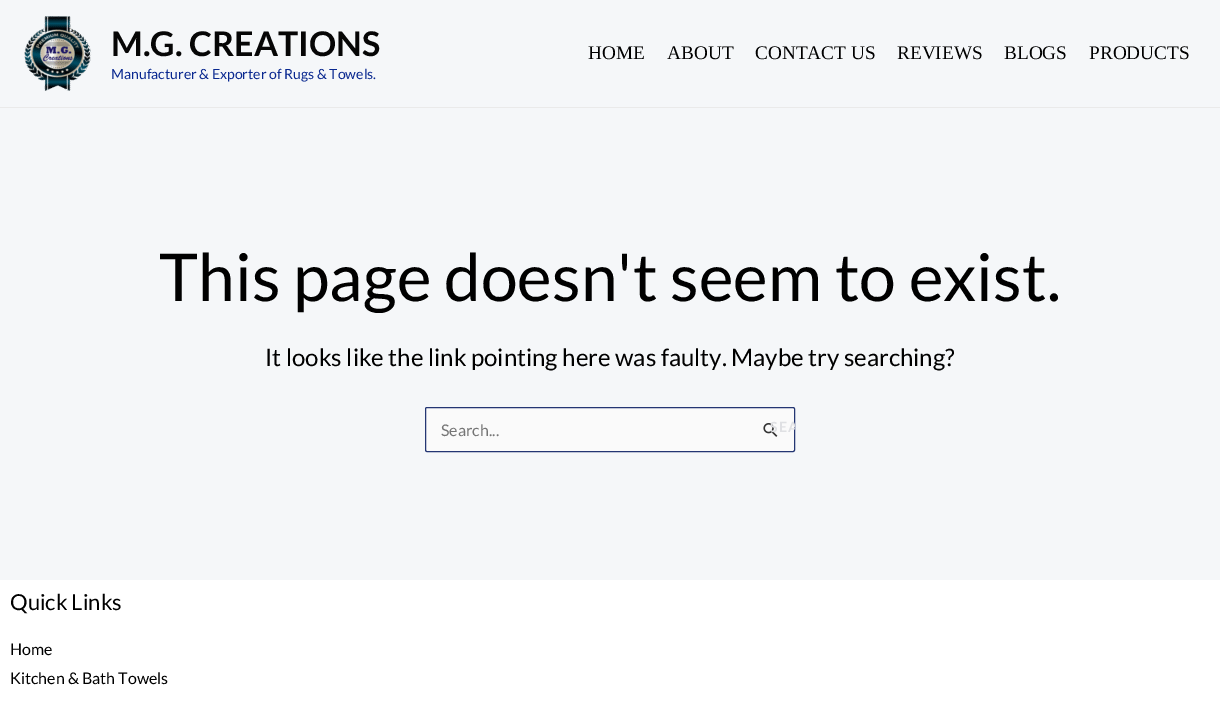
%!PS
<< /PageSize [1220 702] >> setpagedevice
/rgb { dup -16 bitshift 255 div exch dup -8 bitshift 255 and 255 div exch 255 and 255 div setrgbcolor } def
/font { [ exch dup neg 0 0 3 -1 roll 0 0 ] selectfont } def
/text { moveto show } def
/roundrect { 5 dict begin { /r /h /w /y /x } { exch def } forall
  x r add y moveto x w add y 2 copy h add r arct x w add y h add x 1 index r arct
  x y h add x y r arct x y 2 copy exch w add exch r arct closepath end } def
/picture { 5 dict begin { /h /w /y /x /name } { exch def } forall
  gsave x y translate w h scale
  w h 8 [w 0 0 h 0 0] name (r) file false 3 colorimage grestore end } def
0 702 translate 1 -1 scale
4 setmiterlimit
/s1 { /Lato-Bold 34 font 16#060606 rgb } def
/s2 { /Lato-Regular 14 font 16#092890 rgb } def
/s3 { /LiberationSerif-Regular 19.25 font 16#000000 rgb } def
/s4 { /Lato-Regular 66 font 16#000000 rgb } def
/s5 { /Lato-Regular 24 font 16#000000 rgb } def
/s6 { /Lato-Regular 16 font 16#757575 rgb } def
/s7 { /Lato-Regular 22 font 16#000000 rgb } def
/s8 { /Lato-Regular 16 font 16#000000 rgb } def
16#F5F7F9 rgb
0 0 1220 702 rectfill
16#EAEAEA rgb
0 107 1220 1 rectfill
(pic1.raw) 24 16 68 75 picture
s1
(M.G. CREATIONS) 111 56 text
s2
(Manufacturer & Exporter of Rugs & Towels.) 111 79 text
s3
(HOME) 588 59 text
(ABOUT) 667 59 text
(CONTACT US) 755 59 text
(REVIEWS) 897 59 text
(BLOGS) 1004 59 text
(PRODUCTS) 1089 59 text
s4
(This page doesn't seem to exist.) 159 301 text
s5
(It looks like the link pointing here was faulty. Maybe try searching?) 265 366 text
16#FAFAFA rgb
425.5 407.5 369 44 1.5 roundrect gsave fill grestore
16#243673 rgb
stroke
(pic2.raw) 763 423 15 14 picture
gsave
750 407 45 40 2 roundrect clip newpath
/Lato-Bold 14 font
16#DFE0E3 rgb
770 432 moveto 1 0 (SEA) ashow
grestore
s6
(Search...) 441 436 text
16#FFFFFF rgb
0 580 1220 122 rectfill
s7
(Quick Links) 10 610 text
s8
(Home) 10 655 text
(Kitchen & Bath Towels) 10 684 text
showpage
